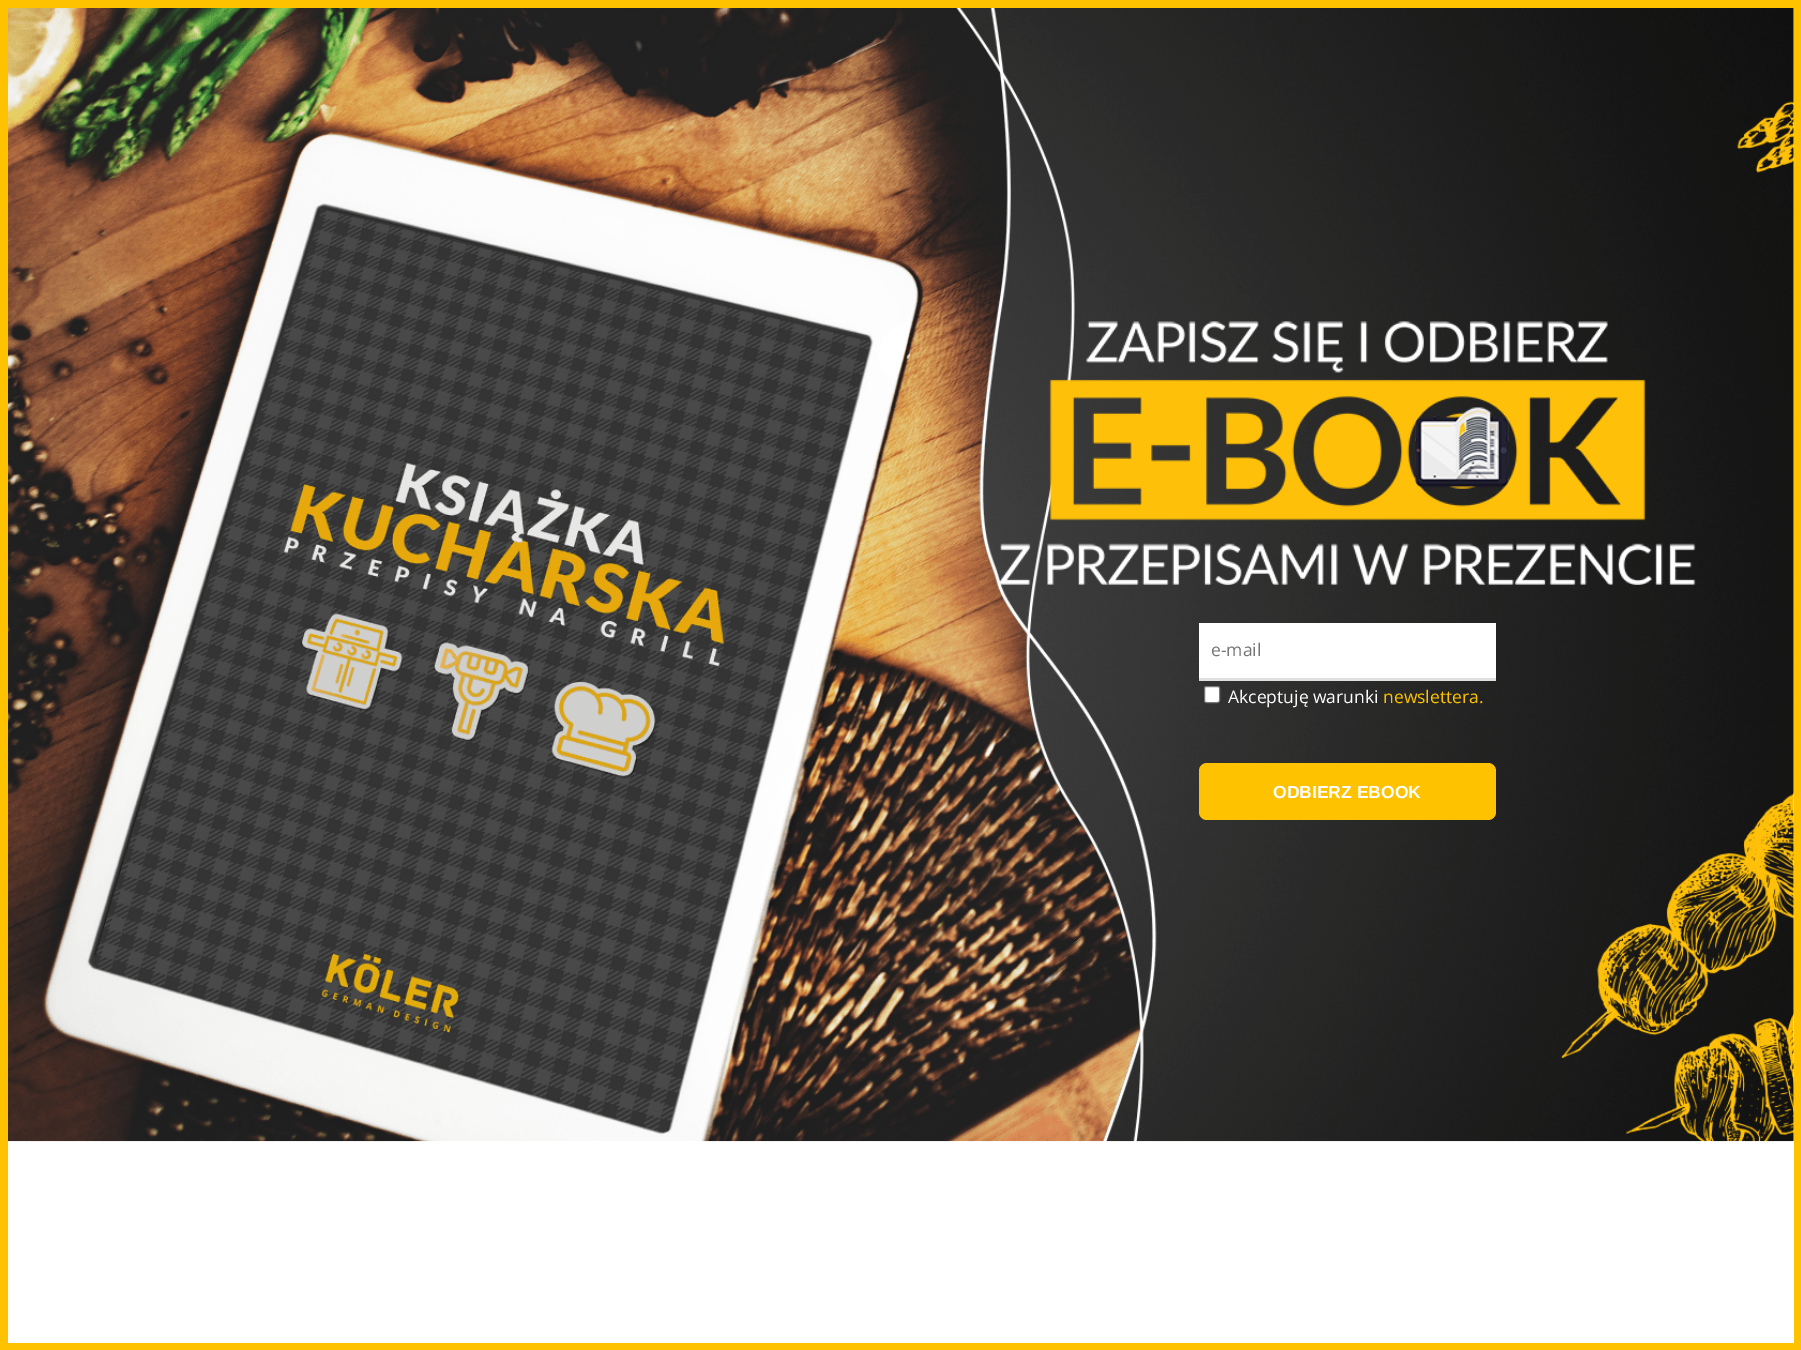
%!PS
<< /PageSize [1801 1350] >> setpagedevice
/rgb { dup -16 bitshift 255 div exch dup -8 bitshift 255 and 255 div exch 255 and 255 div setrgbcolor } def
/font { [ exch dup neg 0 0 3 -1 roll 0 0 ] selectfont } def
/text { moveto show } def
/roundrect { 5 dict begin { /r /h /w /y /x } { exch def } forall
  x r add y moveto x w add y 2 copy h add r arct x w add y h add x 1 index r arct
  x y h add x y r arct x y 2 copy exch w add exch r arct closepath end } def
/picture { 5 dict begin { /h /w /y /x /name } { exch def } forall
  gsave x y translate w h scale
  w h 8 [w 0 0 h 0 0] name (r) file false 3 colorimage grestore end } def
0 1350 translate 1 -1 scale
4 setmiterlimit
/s1 { /OpenSans-Regular 17.5 font 16#757575 rgb } def
/s2 { /OpenSans-Regular 17.5 font 16#FFFFFF rgb } def
/s3 { /OpenSans-Regular 17.5 font 16#FFC200 rgb } def
/s4 { /LiberationSans-Bold 17.5 font 16#FFFFFF rgb } def
16#FFFFFF rgb
0 0 1801 1350 rectfill
16#FFC200 rgb
0 0 1801 8 rectfill
1794 0 7 1350 rectfill
0 1343 1801 7 rectfill
0 0 8 1350 rectfill
(pic1.raw) 8 8 1786 1134 picture
(pic2.raw) 999 321 697 264 picture
16#FFFFFF rgb
1199 623 297 55 rectfill
16#E0E0E0 rgb
1199 678 297 3 rectfill
s1
(e-mail) 1211 656 text
16#FFFFFF rgb
1204.5 686.5 15 16 2 roundrect gsave fill grestore
16#767676 rgb
stroke
s2
(Akceptuję warunki) 1228 703 text
s3
(newslettera.) 1383 703 text
1199 763 297 57 8 roundrect fill
s4
(ODBIERZ EBOOK) 1273 798 text
showpage
